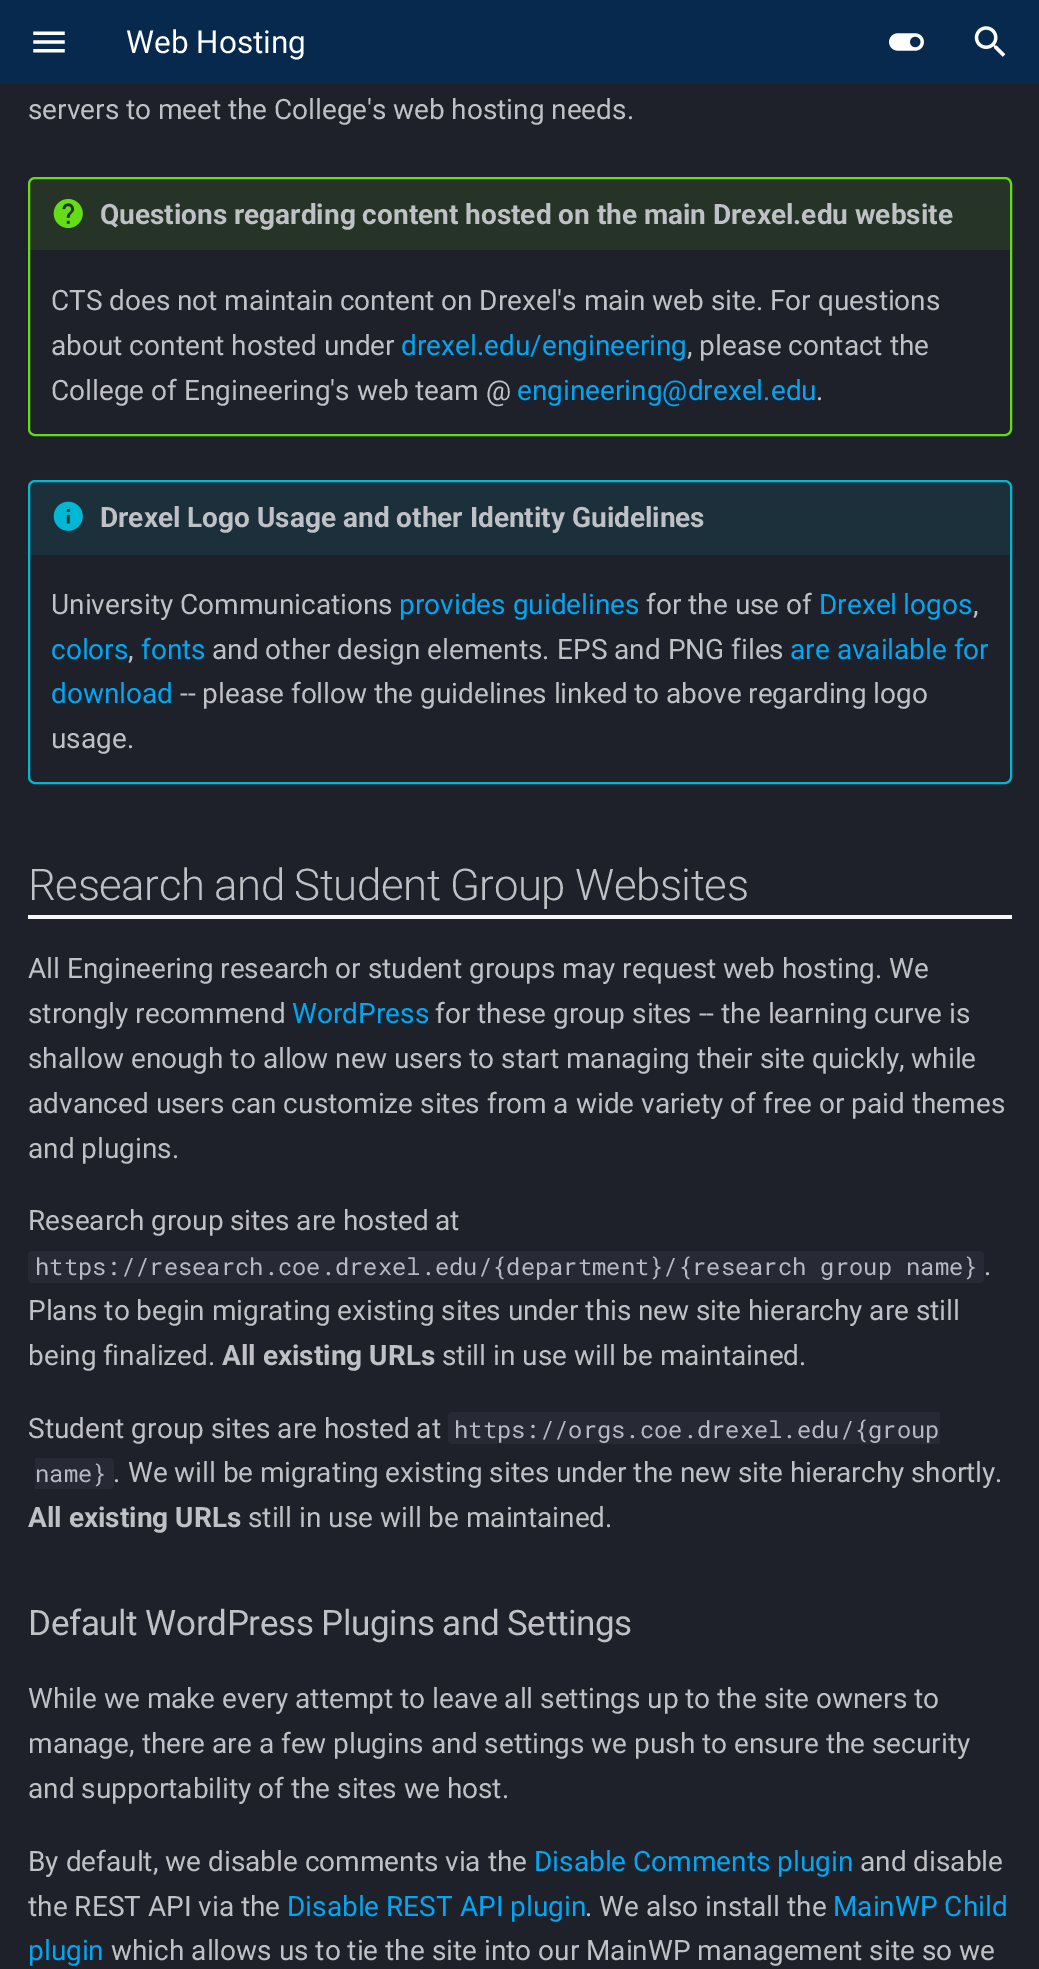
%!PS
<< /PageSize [1039 1969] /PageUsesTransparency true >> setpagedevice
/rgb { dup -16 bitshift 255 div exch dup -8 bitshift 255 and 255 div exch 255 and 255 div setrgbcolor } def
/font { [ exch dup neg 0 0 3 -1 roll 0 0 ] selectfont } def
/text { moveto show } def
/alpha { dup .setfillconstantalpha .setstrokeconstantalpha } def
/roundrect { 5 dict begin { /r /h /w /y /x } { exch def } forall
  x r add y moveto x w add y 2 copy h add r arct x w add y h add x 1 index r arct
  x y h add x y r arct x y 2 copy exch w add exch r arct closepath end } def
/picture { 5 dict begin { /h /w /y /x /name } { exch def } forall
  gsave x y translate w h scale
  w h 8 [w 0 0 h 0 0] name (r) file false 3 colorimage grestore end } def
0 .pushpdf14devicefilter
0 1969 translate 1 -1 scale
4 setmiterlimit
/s1 { /Roboto-Regular 31.5 font 16#FFFFFF rgb } def
/s2 { /Roboto-Regular 28 font 16#BFC1C6 rgb } def
/s3 { /Roboto-Regular 28 font 16#02A6F2 rgb } def
/s4 { /Roboto-Bold 28 font 16#BFC1C6 rgb } def
/s5 { /RobotoMono-Regular 23.8 font 16#B6B9C3 rgb } def
16#1E2129 rgb
0 0 1039 1969 rectfill
16#07294D rgb
0 0 1039 84 rectfill
(pic1.raw) 33 31 32 22 picture
s1
(Web Hosting) 126 53 text
(pic2.raw) 889 33 35 18 picture
(pic3.raw) 974 26 32 31 picture
/Roboto-Regular 28 font
16#BFC1C6 rgb
28 119 moveto -0.25 0 32 (servers to meet the College's web hosting needs.) widthshow
16#64DD17 rgb
2 setlinewidth
29 178 982 257 6 roundrect stroke
0.1 alpha
34 179 moveto 1006 179 lineto 1008 179 1010 181 1010 183 curveto 1010 250 lineto 30 250 lineto 30 183 lineto 30 181 32 179 34 179 curveto closepath fill
1 alpha
(pic4.raw) 53 198 30 31 picture
/Roboto-Bold 28 font
16#BFC1C6 rgb
100 224 moveto -0.1 0 32 (Questions regarding content hosted on the main Drexel.edu website) widthshow
/Roboto-Regular 28 font
51 310 moveto -0.25 0 32 (CTS does not maintain content on Drexel's main web site.) widthshow
(For questions) 770 310 text
(about content hosted under) 51 355 text
s3
(drexel.edu/engineering) 401 355 text
s2
(, please contact the) 687 355 text
(College of Engineering's web team @) 51 400 text
s3
(engineering@drexel.edu) 517 400 text
s2
(.) 816 400 text
16#00B8D4 rgb
29 481 982 302 6 roundrect stroke
0.1 alpha
34 481 moveto 1006 481 lineto 1008 481 1010 483 1010 485 curveto 1010 555 lineto 30 555 lineto 30 485 lineto 30 483 32 481 34 481 curveto closepath fill
1 alpha
(pic5.raw) 53 501 30 30 picture
s4
(Drexel Logo Usage and other Identity Guidelines) 100 527 text
s2
(University Communications) 51 614 text
s3
(provides guidelines) 399 614 text
s2
(for the use of) 646 614 text
16#02A6F2 rgb
819 614 moveto -1 0 32 (Drexel logos) widthshow
s2
(,) 973 614 text
s3
(colors) 51 659 text
s2
(,) 128 659 text
s3
(fonts) 141 659 text
s2
(and other design elements.) 212 659 text
(EPS and PNG files) 557 659 text
s3
(are available for) 790 659 text
(download) 51 703 text
16#BFC1C6 rgb
180 703 moveto -0.25 0 32 (-- please follow the guidelines linked to above regarding logo) widthshow
(usage.) 51 748 text
16#F8F8F8 rgb
28 915 984 4 rectfill
/Roboto-Light 43.75 font
16#BFC1C6 rgb
28 900 moveto -0.5 0 32 -0.45 0 (Research and Student Group Websites) awidthshow
/Roboto-Regular 28 font
28 978 moveto -0.1 0 32 (All Engineering research or student groups may request web hosting.) widthshow
(We) 889 978 text
(strongly recommend) 28 1023 text
s3
(WordPress) 292 1023 text
s2
(for these group sites -- the learning curve is) 435 1023 text
(shallow enough to allow new users to start managing their site quickly, while) 28 1068 text
(advanced users can customize sites from a wide variety of free or paid themes) 28 1113 text
(and plugins.) 28 1158 text
28 1230 moveto -0.2 0 32 (Research group sites are hosted at) widthshow
16#272A35 rgb
28 1251 956 32 4 roundrect fill
s5
(https://research.coe.drexel.edu/{department}/{research group name}) 35 1275 text
s2
(.) 984 1275 text
28 1320 moveto -0.2 0 32 (Plans to begin migrating existing sites under this new site hierarchy are still) widthshow
28 1365 moveto -1 0 32 (being finalized.) widthshow
s4
(All existing URLs) 222 1365 text
s2
(still in use will be maintained.) 442 1365 text
(Student group sites are hosted at) 28 1438 text
16#272A35 rgb
452 1412 moveto 940 1412 lineto 940 1444 lineto 452 1444 lineto 450 1444 448 1442 448 1440 curveto 448 1416 lineto 448 1414 450 1412 452 1412 curveto closepath fill
s5
(https://orgs.coe.drexel.edu/{group) 454 1438 text
16#272A35 rgb
35 1458 moveto 110 1458 lineto 112 1458 114 1460 114 1462 curveto 114 1485 lineto 114 1487 112 1489 110 1489 curveto 35 1489 lineto closepath fill
s5
(name}) 35 1482 text
s2
(.) 113 1482 text
128 1482 moveto -0.25 0 32 (We will be migrating existing sites under the new site hierarchy shortly.) widthshow
s4
(All existing URLs) 28 1527 text
s2
(still in use will be maintained.) 248 1527 text
/Roboto-Regular 35 font
28 1635 moveto -0.5 0 32 -0.35 0 (Default WordPress Plugins and Settings) awidthshow
s2
(While we make every attempt to leave all settings up to the site owners to) 28 1708 text
(manage, there are a few plugins and settings we push to ensure the security) 28 1753 text
(and supportability of the sites we host.) 28 1798 text
(By default, we disable comments via the) 28 1871 text
s3
(Disable Comments plugin) 534 1871 text
s2
(and disable) 860 1871 text
(the REST API via the) 28 1916 text
s3
(Disable REST API plugin) 287 1916 text
s2
(. We also install the) 585 1916 text
s3
(MainWP Child) 833 1916 text
(plugin) 28 1960 text
s2
(which allows us to tie the site into our MainWP management site so we) 111 1960 text
.poppdf14devicefilter showpage
